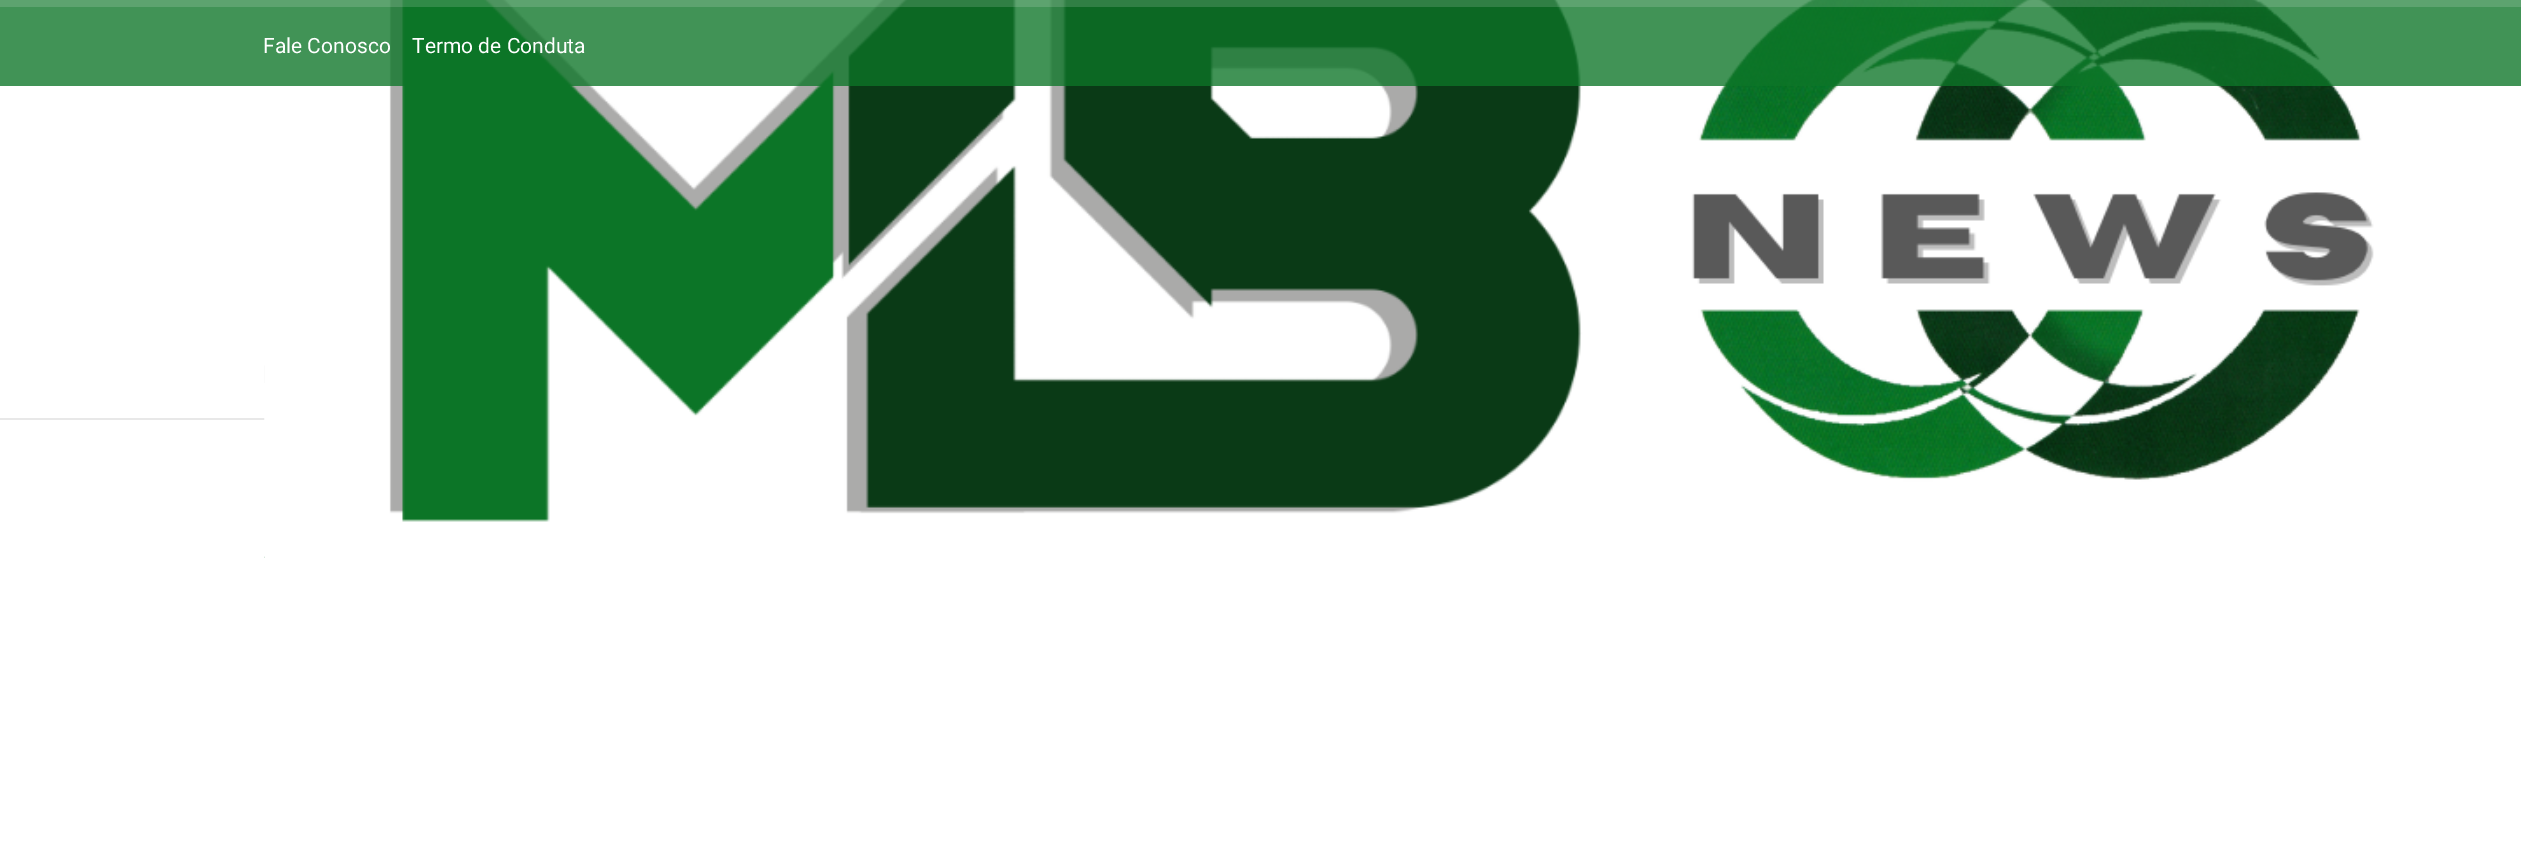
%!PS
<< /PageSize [2521 857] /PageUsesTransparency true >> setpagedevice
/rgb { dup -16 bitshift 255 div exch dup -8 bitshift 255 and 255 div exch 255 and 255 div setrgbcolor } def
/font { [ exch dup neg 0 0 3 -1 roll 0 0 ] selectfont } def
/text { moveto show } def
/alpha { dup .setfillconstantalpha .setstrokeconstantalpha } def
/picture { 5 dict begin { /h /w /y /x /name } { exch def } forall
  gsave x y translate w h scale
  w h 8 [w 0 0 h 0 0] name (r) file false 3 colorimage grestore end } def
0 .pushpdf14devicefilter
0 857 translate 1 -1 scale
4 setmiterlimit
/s1 { /Roboto-Regular 21 font 16#FFFFFF rgb } def
16#FFFFFF rgb
0 0 2521 857 rectfill
16#E8E8E8 rgb
0 418 265 2 rectfill
(pic1.raw) 264 0 2257 857 picture
0.78 alpha
16#0C7527 rgb
0 0 2521 86 rectfill
0.15 alpha
16#FFFFFF rgb
0 0 2521 7 rectfill
1 alpha
s1
(Fale Conosco) 263 53 text
(Termo de Conduta) 412 53 text
.poppdf14devicefilter showpage
